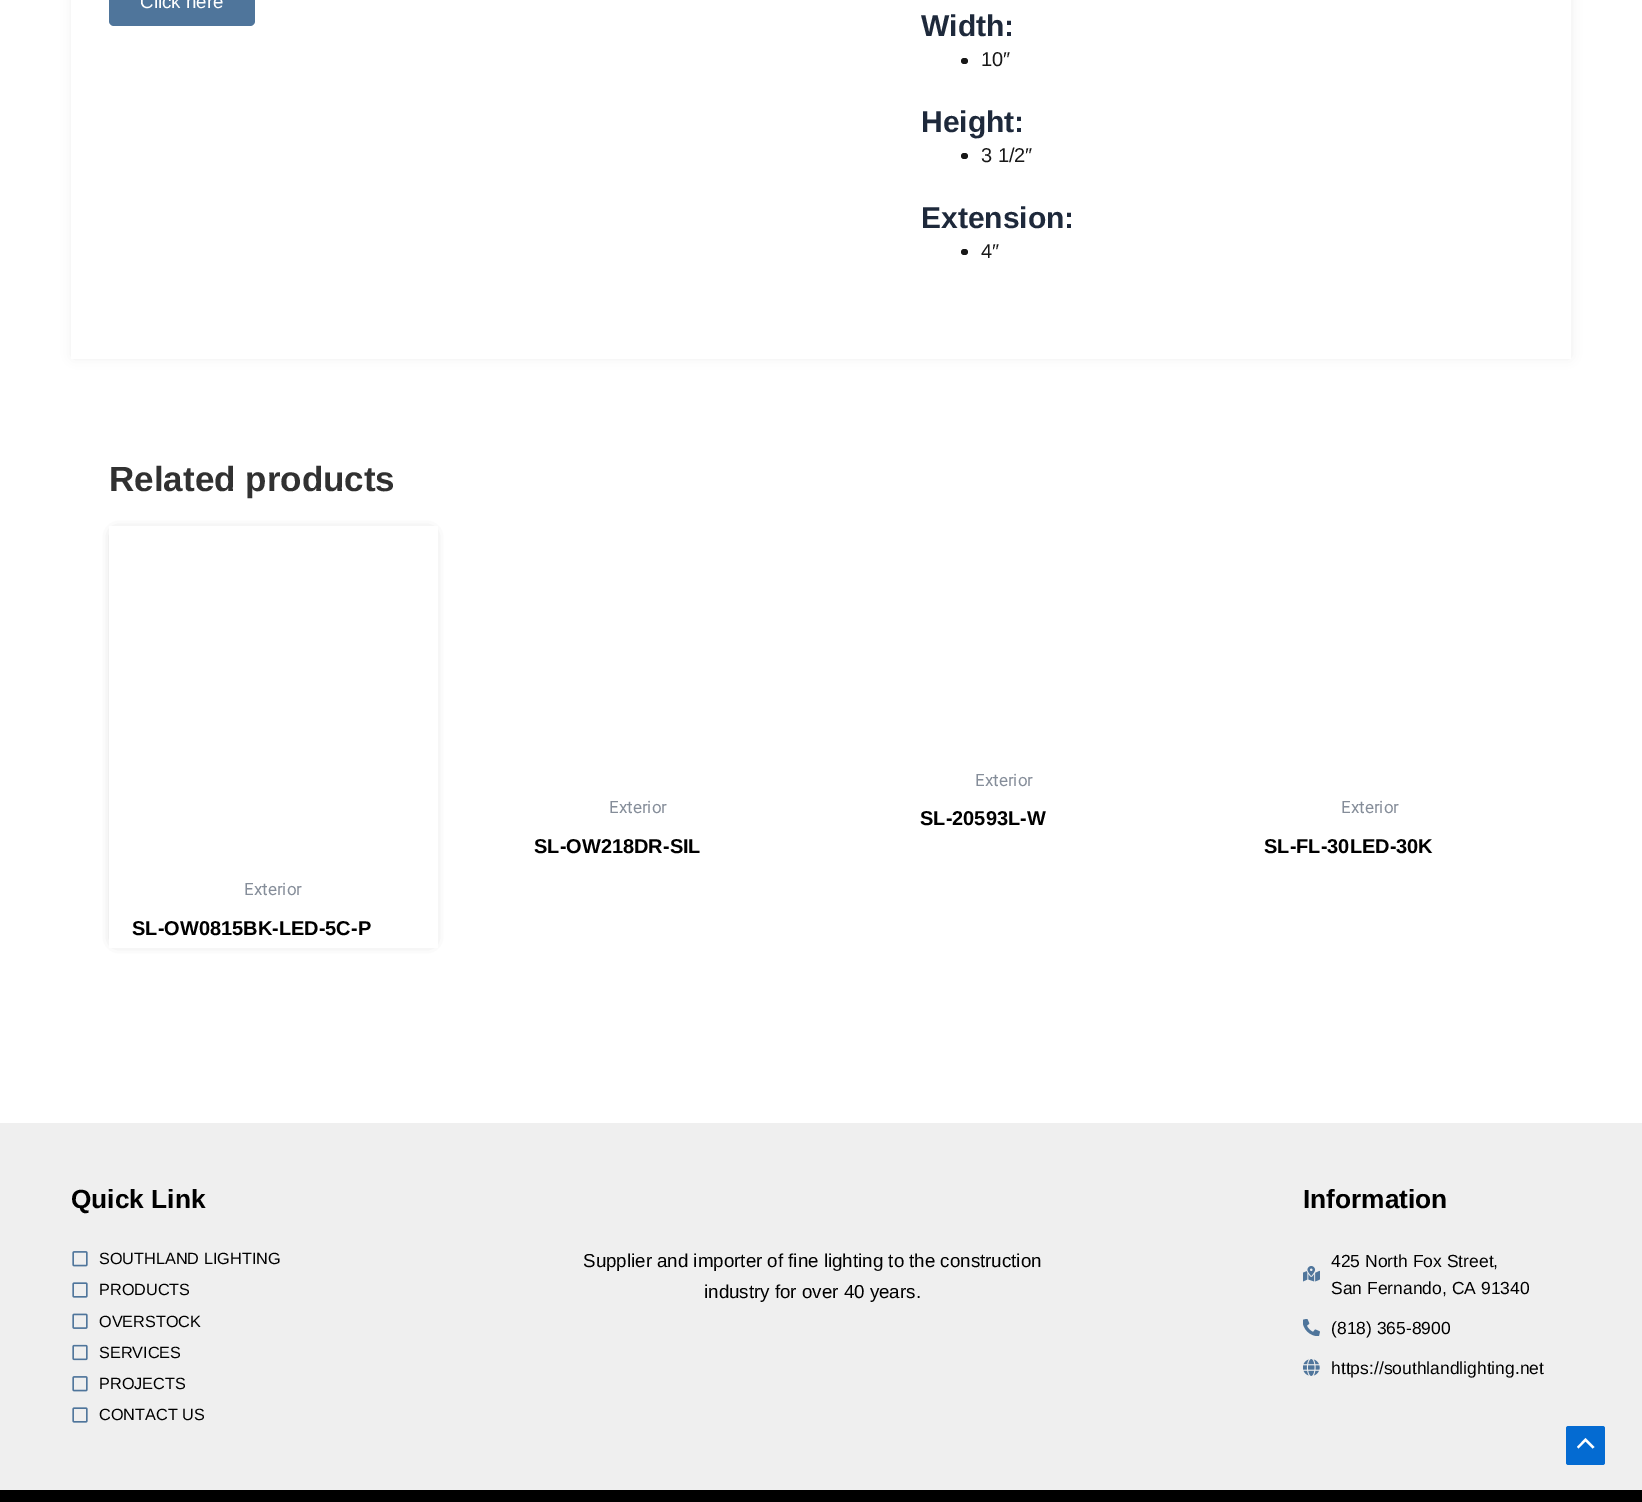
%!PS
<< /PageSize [1642 1502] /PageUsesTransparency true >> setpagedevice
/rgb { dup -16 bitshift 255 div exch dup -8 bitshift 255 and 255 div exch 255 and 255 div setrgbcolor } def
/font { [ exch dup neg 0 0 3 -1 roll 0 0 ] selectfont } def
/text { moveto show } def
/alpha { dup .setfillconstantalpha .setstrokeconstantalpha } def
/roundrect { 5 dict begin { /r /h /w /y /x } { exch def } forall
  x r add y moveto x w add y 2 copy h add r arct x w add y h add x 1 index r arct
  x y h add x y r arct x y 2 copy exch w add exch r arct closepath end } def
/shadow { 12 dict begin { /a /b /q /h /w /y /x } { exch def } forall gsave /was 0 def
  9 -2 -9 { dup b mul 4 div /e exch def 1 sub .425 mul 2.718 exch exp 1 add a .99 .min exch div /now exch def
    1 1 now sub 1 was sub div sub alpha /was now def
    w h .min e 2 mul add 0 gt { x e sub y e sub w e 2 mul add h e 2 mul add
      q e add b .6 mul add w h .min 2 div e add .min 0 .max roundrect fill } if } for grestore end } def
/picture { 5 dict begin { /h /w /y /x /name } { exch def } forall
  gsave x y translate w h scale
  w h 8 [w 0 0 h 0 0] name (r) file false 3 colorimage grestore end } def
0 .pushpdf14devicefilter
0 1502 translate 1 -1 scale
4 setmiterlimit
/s1 { /LiberationSans-Regular 18.75 font 16#FFFFFF rgb } def
/s2 { /LiberationSans-Bold 30 font 16#1E293B rgb } def
/s3 { /LiberationSans-Regular 20 font 16#181818 rgb } def
/s4 { /LiberationSans-Bold 35 font 16#313131 rgb } def
/s5 { /Roboto-Regular 17 font 16#858D99 rgb } def
/s6 { /LiberationSans-Bold 20 font 16#000000 rgb } def
/s7 { /LiberationSans-Bold 26.25 font 16#000000 rgb } def
/s8 { /LiberationSans-Regular 16.25 font 16#000000 rgb } def
/s9 { /LiberationSans-Regular 18.75 font 16#000000 rgb } def
/s10 { /LiberationSans-Regular 17.5 font 16#000000 rgb } def
16#FFFFFF rgb
0 0 1642 1502 rectfill
16#000000 rgb
74 -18 1495 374 0 6 0.11 shadow
16#FFFFFF rgb
71 0 1500 359 rectfill
16#4F759B rgb
109 -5 146 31 5 roundrect fill
s1
(Click here) 140 8 text
s2
(Width:) 921 36 text
16#181818 rgb
961 58 7 6 3 roundrect fill
s3
(10″) 981 66 text
s2
(Height:) 921 132 text
16#181818 rgb
961 153 7 6 3 roundrect fill
s3
(3 1/2″) 981 162 text
s2
(Extension:) 921 228 text
16#181818 rgb
961 249 7 6 3 roundrect fill
s3
(4″) 981 258 text
s4
(Related products) 109 491 text
s5
(Exterior) 609 813 text
s6
(SL-OW218DR-SIL) 534 853 text
s5
(Exterior) 975 786 text
s6
(SL-20593L-W) 920 825 text
s5
(Exterior) 1341 813 text
s6
(SL-FL-30LED-30K) 1264 853 text
gsave
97 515 moveto 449 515 lineto 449 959 lineto 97 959 lineto closepath 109 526 moveto 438 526 lineto 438 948 lineto 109 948 lineto closepath eoclip newpath
116 534 314 406 0 6 0.5 shadow
grestore
s5
(Exterior) 244 895 text
s6
(SL-OW0815BK-LED-5C-P) 132 935 text
16#EFEFEF rgb
0 1123 1642 367 rectfill
s7
(Quick Link) 71 1208 text
(pic1.raw) 72 1251 16 16 picture
s8
(SOUTHLAND LIGHTING) 99 1264 text
(pic2.raw) 72 1282 16 16 picture
(PRODUCTS) 99 1295 text
(pic3.raw) 72 1313 16 16 picture
(OVERSTOCK) 99 1327 text
(pic4.raw) 72 1344 16 17 picture
(SERVICES) 99 1358 text
(pic1.raw) 72 1376 16 16 picture
(PROJECTS) 99 1389 text
(pic2.raw) 72 1407 16 16 picture
(CONTACT US) 99 1420 text
s9
(Supplier and importer of fine lighting to the construction) 583 1267 text
(industry for over 40 years.) 704 1298 text
s7
(Information) 1303 1208 text
(pic5.raw) 1303 1266 17 16 picture
s10
(425 North Fox Street,) 1331 1267 text
(San Fernando, CA 91340) 1331 1294 text
(pic6.raw) 1303 1319 17 17 picture
(\(818\) 365-8900) 1331 1334 text
(pic7.raw) 1303 1359 17 17 picture
(https://southlandlighting.net) 1331 1374 text
0 1490 1642 12 rectfill
16#046BD2 rgb
1566 1426 39 39 2.5 roundrect fill
16#FFFFFF rgb
1594.5 1447 moveto 1585.5 1438 lineto 1577 1447 lineto 1578.5 1448.5 lineto 1585.5 1441.5 lineto 1592.5 1448.5 lineto closepath fill
.poppdf14devicefilter showpage
